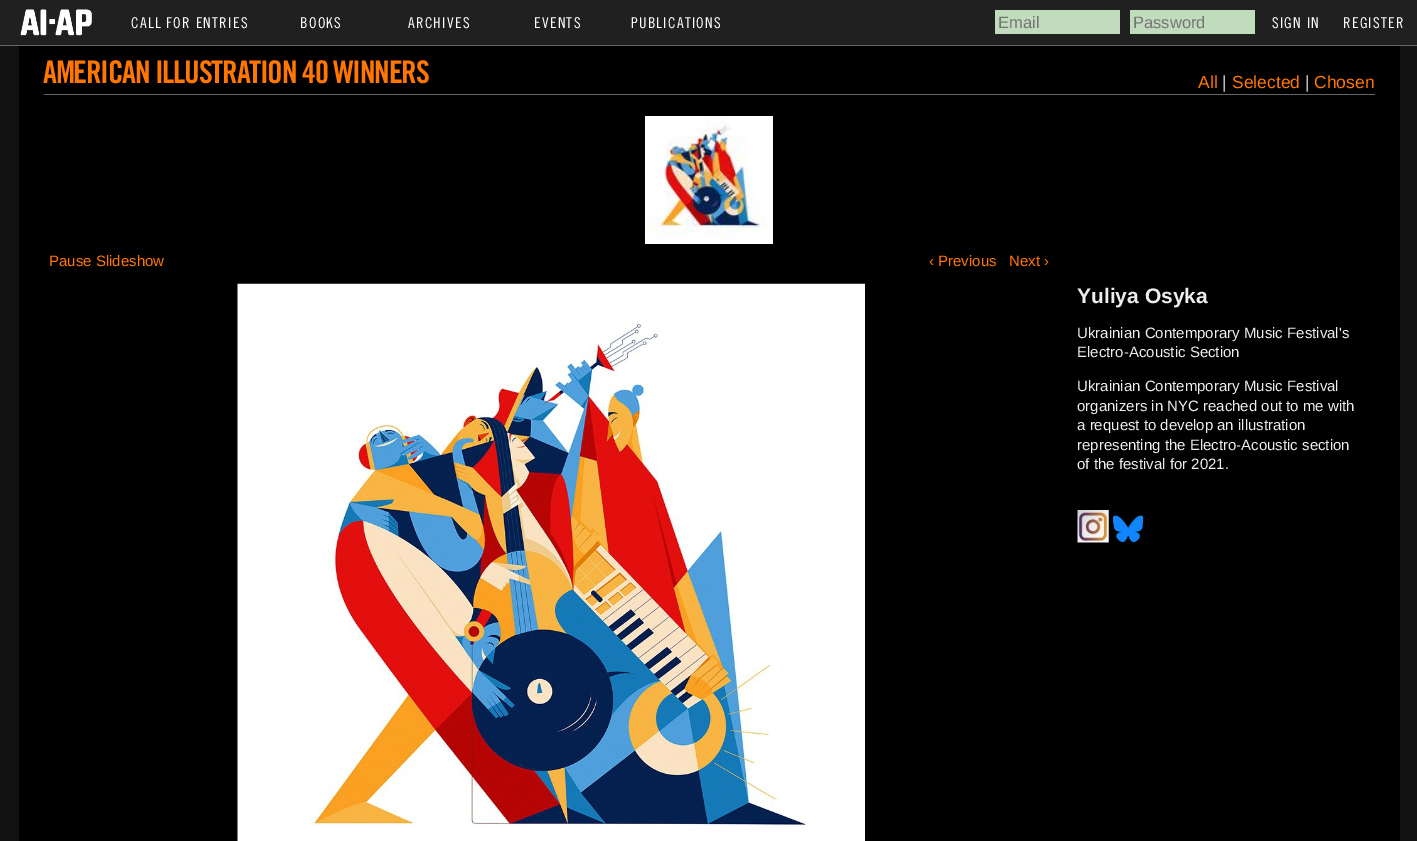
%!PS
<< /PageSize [1417 841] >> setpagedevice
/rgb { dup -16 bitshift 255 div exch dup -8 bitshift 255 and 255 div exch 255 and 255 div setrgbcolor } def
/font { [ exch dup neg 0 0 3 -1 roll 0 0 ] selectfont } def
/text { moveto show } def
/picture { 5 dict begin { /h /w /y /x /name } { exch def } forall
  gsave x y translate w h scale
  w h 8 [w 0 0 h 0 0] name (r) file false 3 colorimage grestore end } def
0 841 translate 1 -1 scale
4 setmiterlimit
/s1 { /LiberationSans-Regular 16.5 font 16#757575 rgb } def
/s2 { /LiberationSans-Regular 17.5 font 16#FF7700 rgb } def
/s3 { /LiberationSans-Regular 17.5 font 16#BBBBBB rgb } def
/s4 { /LiberationSans-Regular 15 font 16#FF7700 rgb } def
/s5 { /LiberationSans-Bold 21 font 16#EEEEEE rgb } def
/s6 { /LiberationSans-Regular 15 font 16#EEEEEE rgb } def
16#111111 rgb
0 0 1417 841 rectfill
16#202020 rgb
0 0 1417 45 rectfill
(pic1.raw) 20 9 72 27 picture
/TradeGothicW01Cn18-Regular 15 font
16#FFFFFF rgb
131 28 moveto 1.25 0 (CALL FOR ENTRIES) ashow
300 28 moveto 1.25 0 (BOOKS) ashow
408 28 moveto 1.25 0 (ARCHIVES) ashow
534 28 moveto 1.25 0 (EVENTS) ashow
631 28 moveto 1.25 0 (PUBLICATIONS) ashow
16#C1DBBD rgb
995 10 125 24 rectfill
s1
(Email) 998 28 text
16#C1DBBD rgb
1130 10 125 24 rectfill
s1
(Password) 1133 28 text
/TradeGothicW01Cn18-Regular 15 font
16#FFFFFF rgb
1272 28 moveto 1.25 0 (SIGN IN) ashow
1343 28 moveto 1.25 0 (REGISTER) ashow
16#666666 rgb
0 45 1417 1 rectfill
16#000000 rgb
19 46 1381 795 rectfill
16#666666 rgb
44 94 1331 1 rectfill
/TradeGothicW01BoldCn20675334-Bold 31.25 font
16#FF7700 rgb
43 83 moveto -1.25 0 (AMERICAN ILLUSTRATION 40 WINNERS) ashow
s2
(All) 1198 88 text
s3
(|) 1222 88 text
s2
(Selected) 1232 88 text
s3
(|) 1305 88 text
s2
(Chosen) 1314 88 text
16#FFFFFF rgb
645 116 128 128 rectfill
(pic2.raw) 646 117 121 121 picture
s4
(Pause Slideshow) 49 266 text
(‹ Previous) 929 266 text
(Next ›) 1009 266 text
(pic3.raw) 237 283 628 558 picture
s5
(Yuliya Osyka) 1077 303 text
s6
(Ukrainian Contemporary Music Festival's) 1077 338 text
(Electro-Acoustic Section) 1077 357 text
(Ukrainian Contemporary Music Festival) 1077 391 text
(organizers in NYC reached out to me with) 1077 411 text
(a request to develop an illustration) 1077 430 text
(representing the Electro-Acoustic section) 1077 450 text
(of the festival for 2021.) 1077 469 text
(pic4.raw) 1077 510 32 33 picture
(pic5.raw) 1112 515 32 28 picture
showpage
